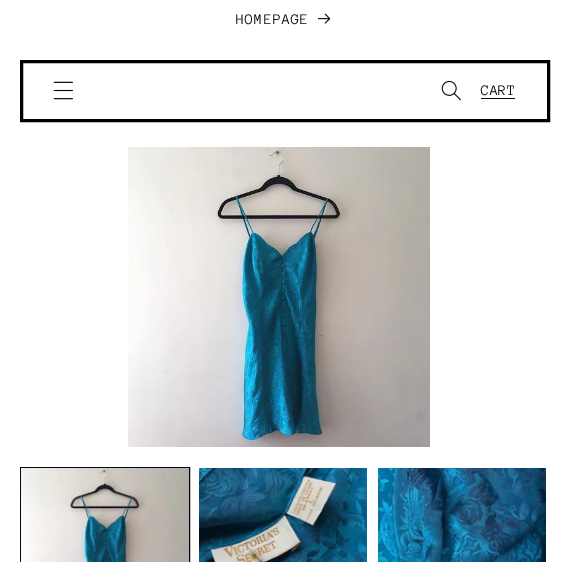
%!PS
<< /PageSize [570 562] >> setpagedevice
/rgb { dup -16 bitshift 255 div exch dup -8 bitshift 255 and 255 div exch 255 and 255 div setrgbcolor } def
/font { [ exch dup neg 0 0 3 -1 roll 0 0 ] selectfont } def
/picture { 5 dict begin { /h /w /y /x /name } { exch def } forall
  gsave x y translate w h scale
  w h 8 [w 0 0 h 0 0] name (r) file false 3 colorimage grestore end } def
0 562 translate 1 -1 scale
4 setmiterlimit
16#FFFFFF rgb
0 0 570 562 rectfill
/AnonymousPro-Regular 15 font
16#020912 rgb
236 24 moveto 1 0 (HOMEPAGE) ashow
(pic1.raw) 318 13 13 11 picture
16#000000 rgb
3 setlinewidth
21.5 61.5 527 59 rectstroke
(pic2.raw) 53 81 20 19 picture
(pic3.raw) 441 80 20 21 picture
16#020912 rgb
481 95 moveto 0.5 0 (CART) ashow
481 98 34 1 rectfill
(pic4.raw) 128 147 302 300 picture
1 setlinewidth
20.5 467.5 169 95 rectstroke
(pic5.raw) 21 468 168 94 picture
(pic6.raw) 199 468 168 94 picture
(pic7.raw) 378 468 168 94 picture
showpage
